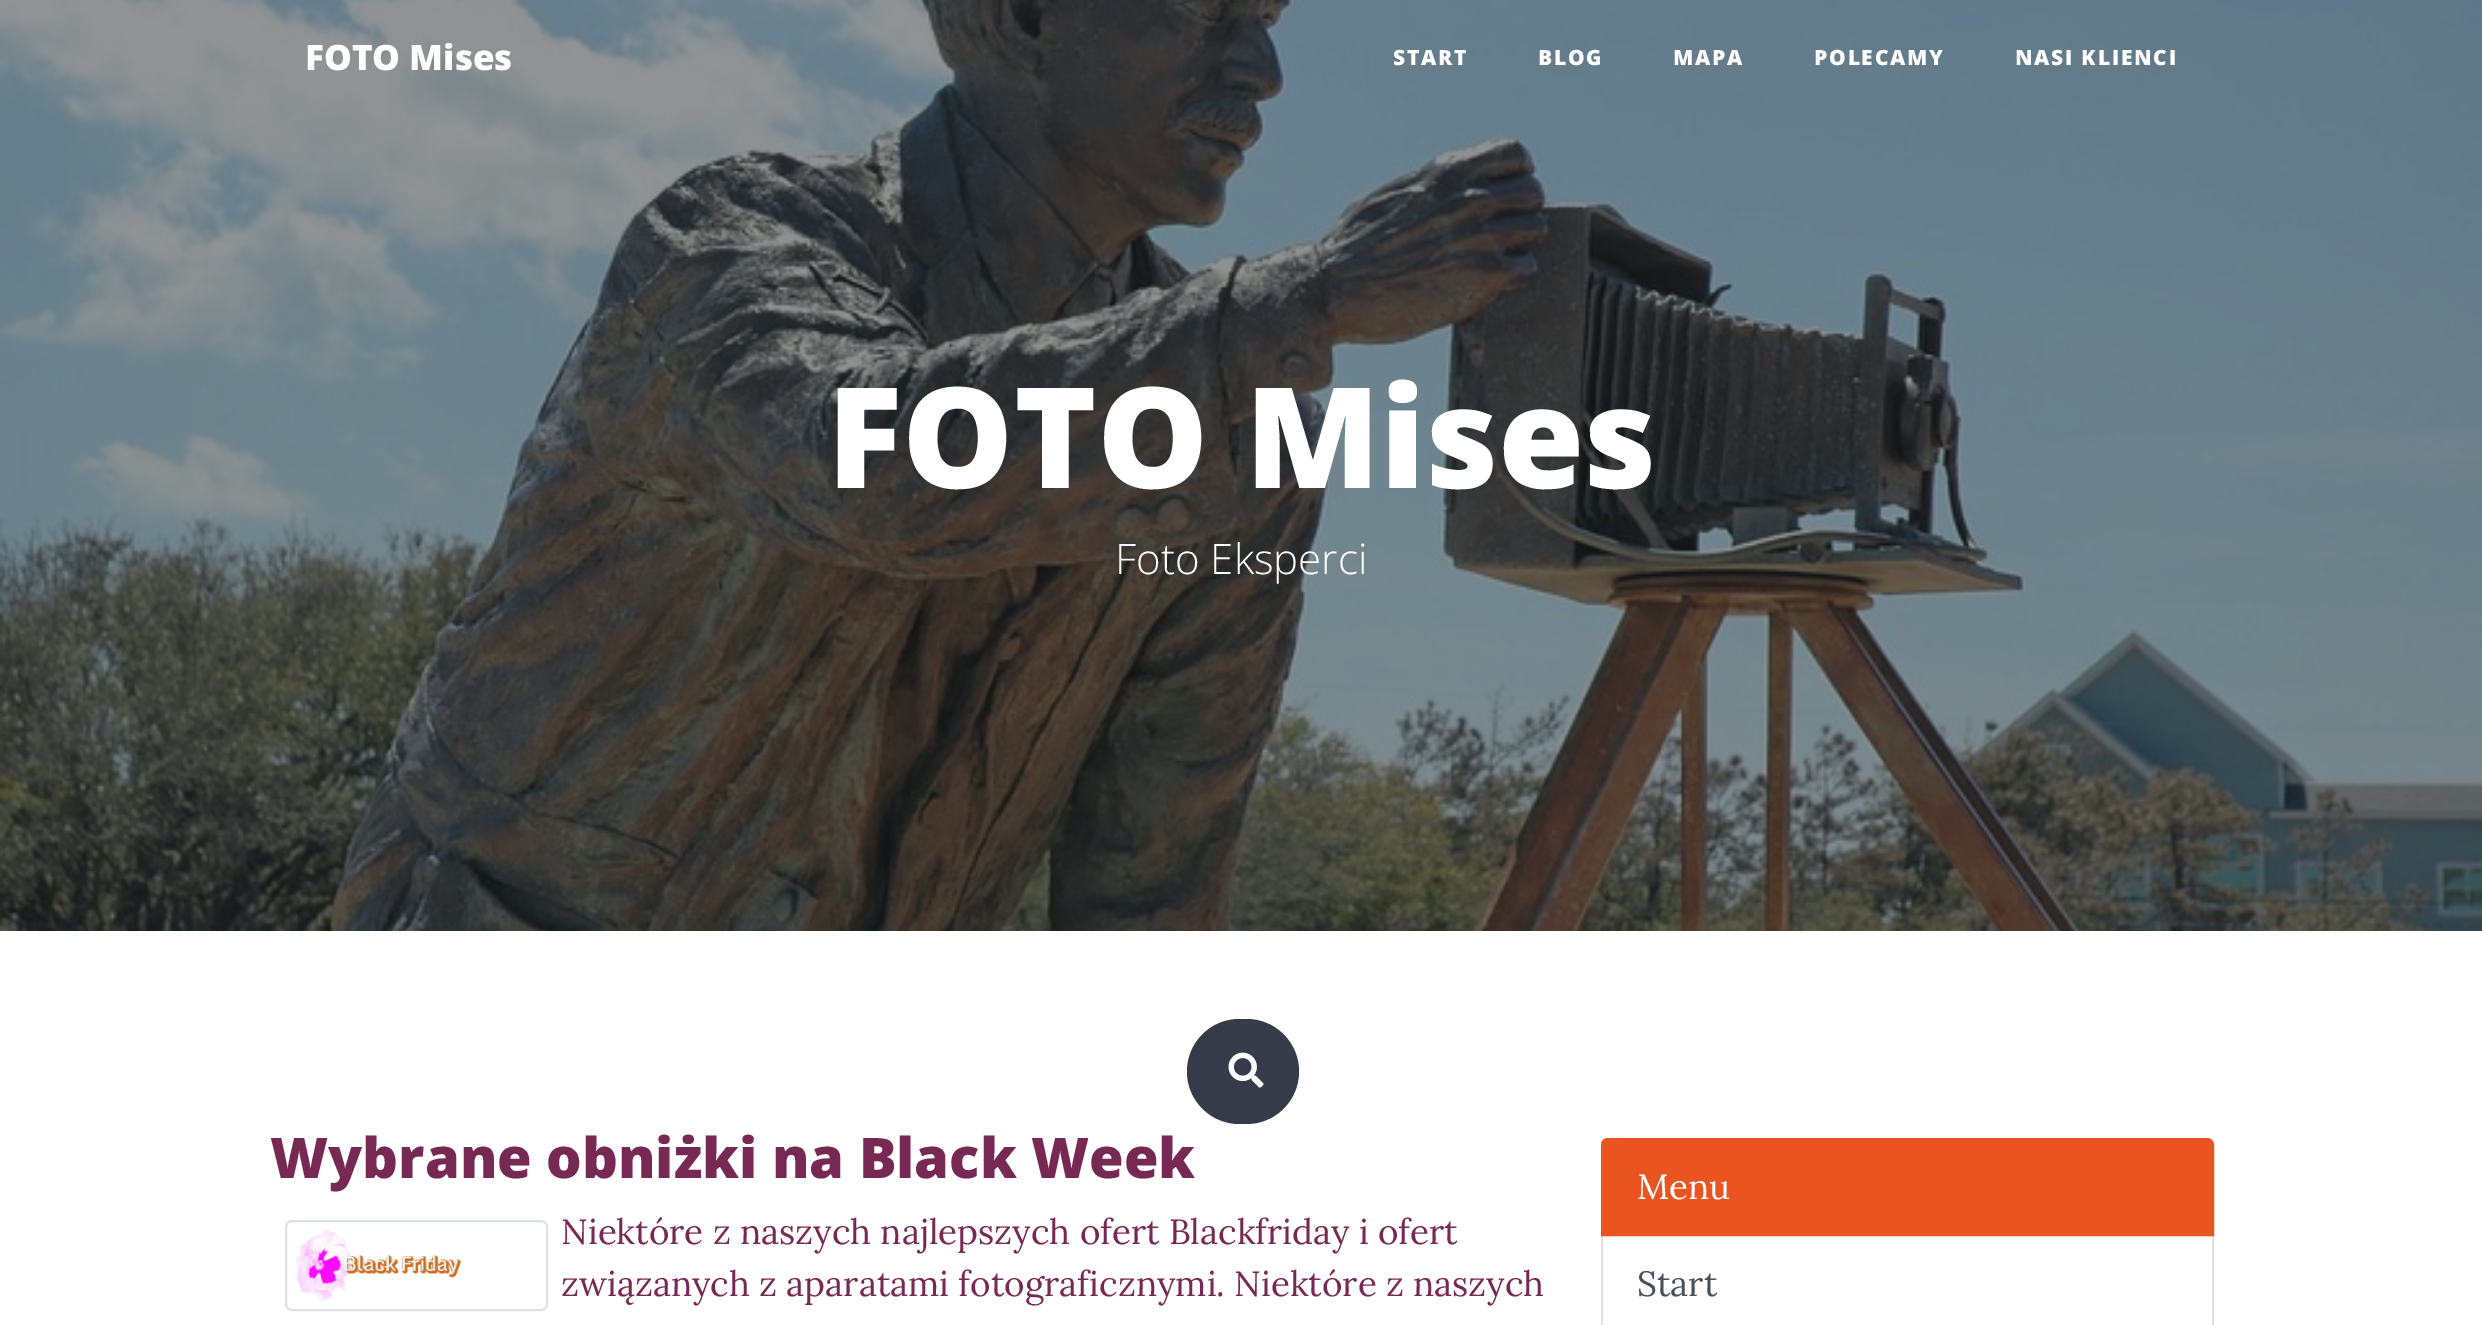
%!PS
<< /PageSize [2482 1325] >> setpagedevice
/rgb { dup -16 bitshift 255 div exch dup -8 bitshift 255 and 255 div exch 255 and 255 div setrgbcolor } def
/font { [ exch dup neg 0 0 3 -1 roll 0 0 ] selectfont } def
/text { moveto show } def
/roundrect { 5 dict begin { /r /h /w /y /x } { exch def } forall
  x r add y moveto x w add y 2 copy h add r arct x w add y h add x 1 index r arct
  x y h add x y r arct x y 2 copy exch w add exch r arct closepath end } def
/picture { 5 dict begin { /h /w /y /x /name } { exch def } forall
  gsave x y translate w h scale
  w h 8 [w 0 0 h 0 0] name (r) file false 3 colorimage grestore end } def
0 1325 translate 1 -1 scale
4 setmiterlimit
/s1 { /OpenSans-ExtraBold 35 font 16#FFFFFF rgb } def
/s2 { /OpenSans-ExtraBold 140 font 16#FFFFFF rgb } def
/s3 { /OpenSans-Light 42 font 16#FFFFFF rgb } def
/s4 { /OpenSans-ExtraBold 56 font 16#772953 rgb } def
/s5 { /Lora-Regular 35 font 16#772953 rgb } def
/s6 { /Lora-Regular 35 font 16#FFFFFF rgb } def
/s7 { /Lora-Regular 35 font 16#495057 rgb } def
16#FFFFFF rgb
0 0 2482 1325 rectfill
(pic1.raw) 0 0 2482 931 picture
s1
(FOTO Mises) 305 70 text
/OpenSans-ExtraBold 21 font
1393 65 moveto 1.75 0 (START) ashow
1538 65 moveto 1.75 0 (BLOG) ashow
1673 65 moveto 1.75 0 (MAPA) ashow
1814 65 moveto 1.75 0 (POLECAMY) ashow
2015 65 moveto 1.75 0 (NASI KLIENCI) ashow
s2
(FOTO Mises) 827 488 text
s3
(Foto Eksperci) 1115 574 text
16#353B48 rgb
1187 1019 112 105 52.5 roundrect fill
(pic2.raw) 1228 1052 36 36 picture
s4
(Wybrane obniżki na Black Week) 270 1178 text
16#DEE2E6 rgb
2 setlinewidth
286 1221 261 89 6 roundrect stroke
(pic3.raw) 294 1230 167 72 picture
s5
(Niektóre z naszych najlepszych ofert Blackfriday i ofert) 561 1244 text
(związanych z aparatami fotograficznymi. Niektóre z naszych) 561 1296 text
16#DFDFDF rgb
1602 1235 611 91 rectstroke
16#E95420 rgb
1608 1139 moveto 2207 1139 lineto 2210.5 1139 2213 1141.5 2213 1145 curveto 2213 1235 lineto 1602 1235 lineto 1602 1145 lineto 1602 1141.5 1604.5 1139 1608 1139 curveto closepath gsave fill grestore
stroke
s6
(Menu) 1637 1199 text
s7
(Start) 1637 1296 text
showpage
